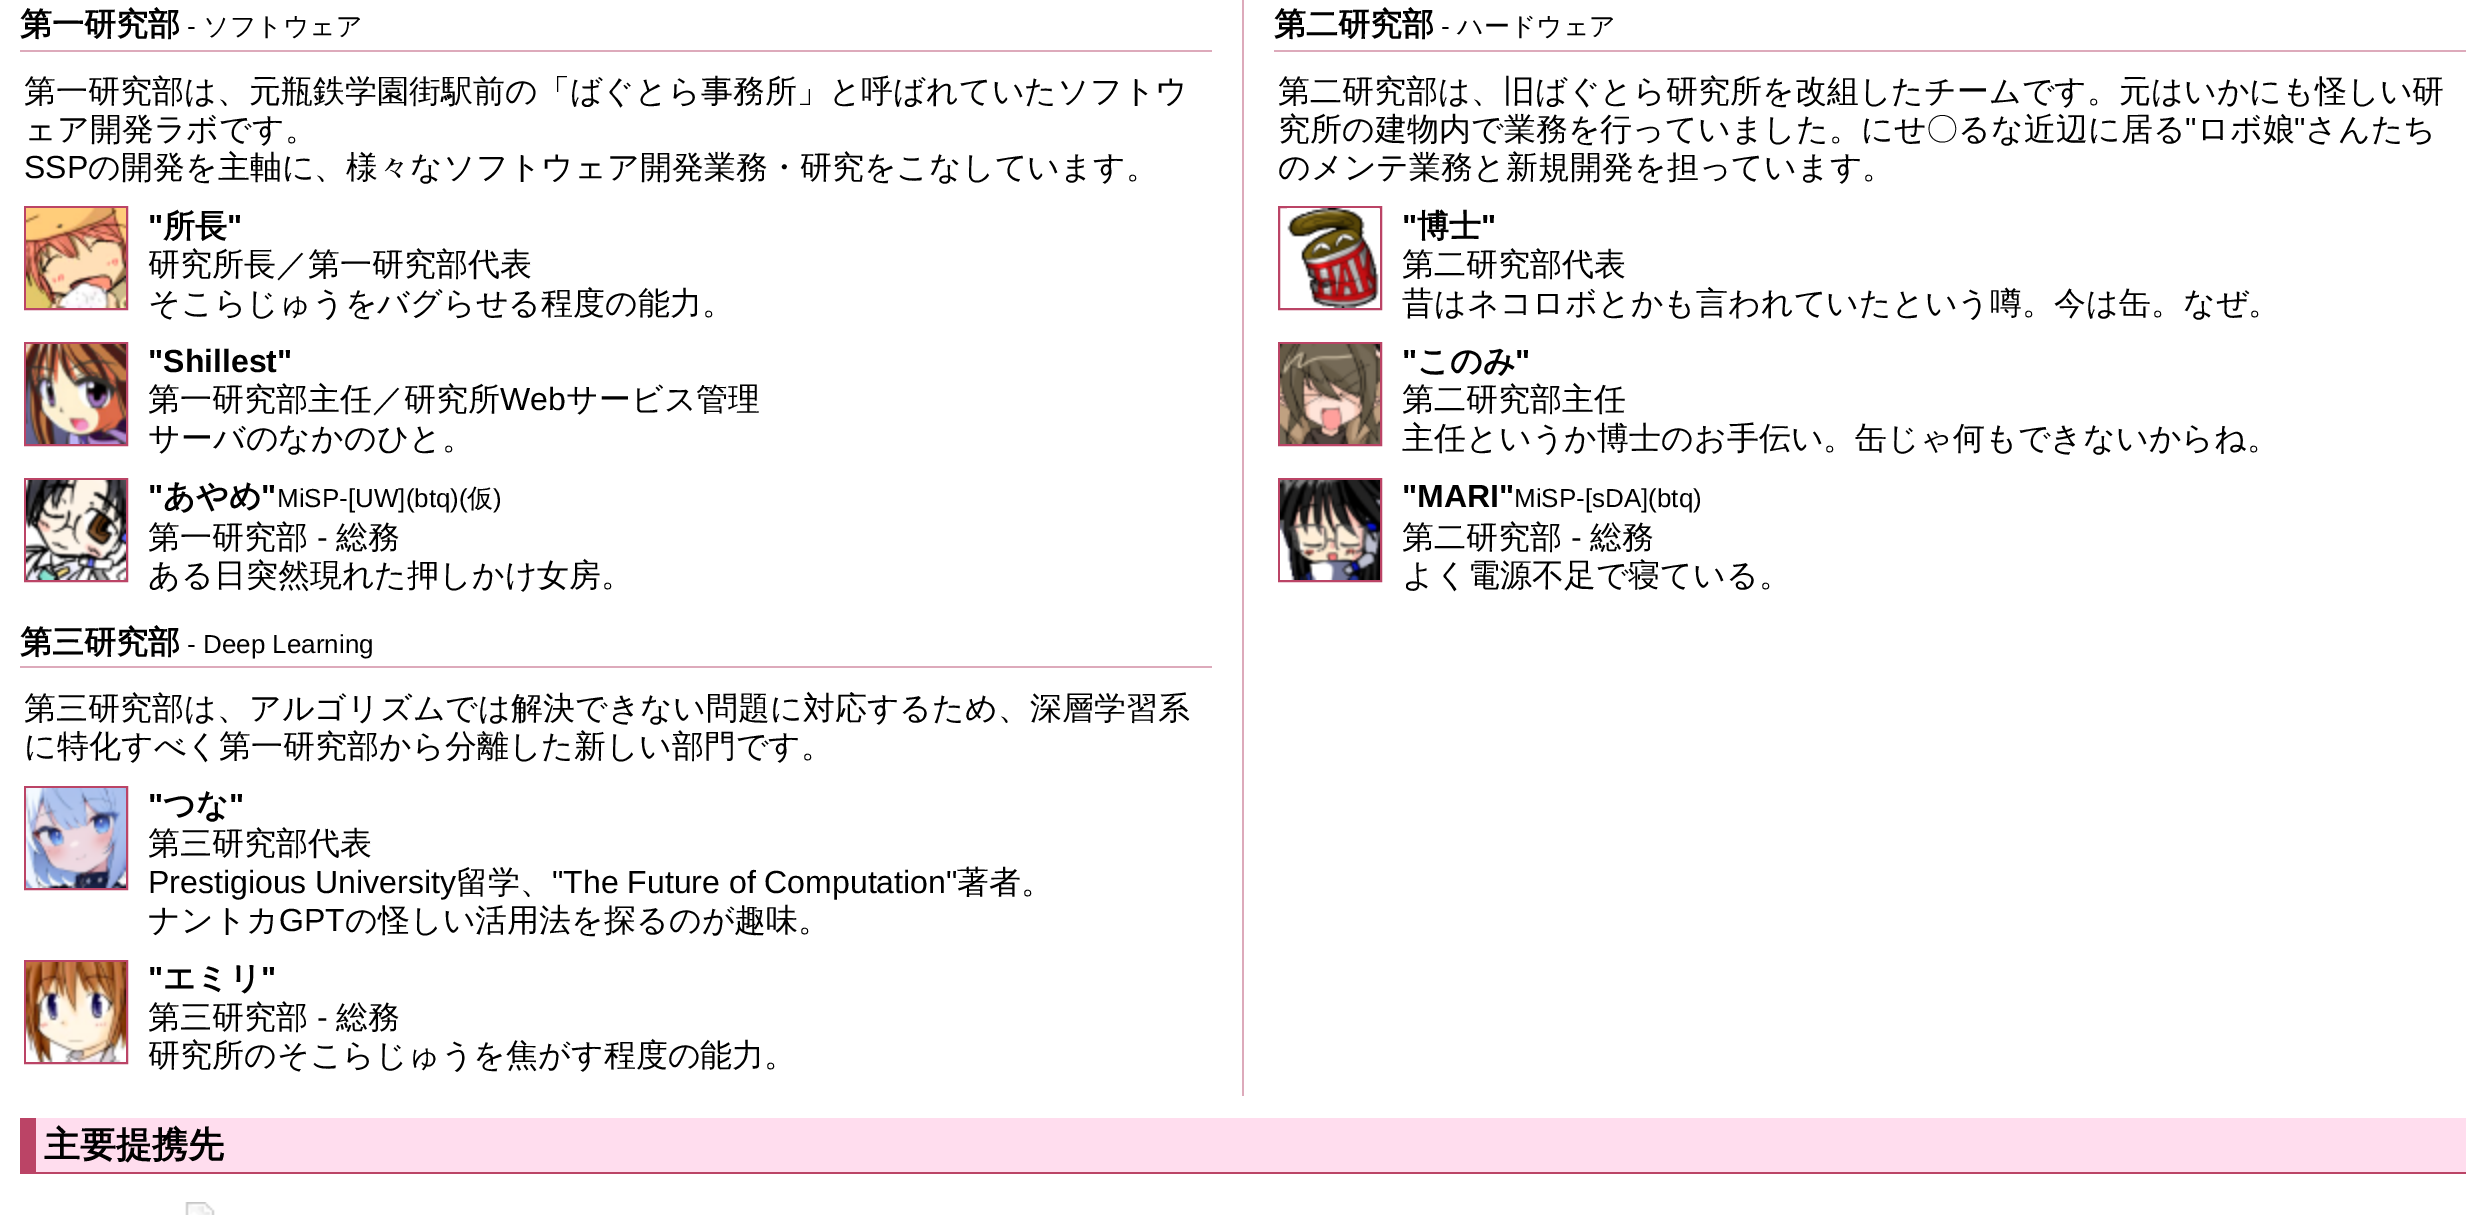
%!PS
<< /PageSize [2486 1215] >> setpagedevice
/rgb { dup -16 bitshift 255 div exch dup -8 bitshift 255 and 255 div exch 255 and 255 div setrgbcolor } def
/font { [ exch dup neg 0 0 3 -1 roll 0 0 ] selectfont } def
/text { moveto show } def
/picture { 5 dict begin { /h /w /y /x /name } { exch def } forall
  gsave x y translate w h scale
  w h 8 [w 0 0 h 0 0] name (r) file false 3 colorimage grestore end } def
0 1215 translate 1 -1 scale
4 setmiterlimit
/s1 { /WenQuanYiZenHei-Bold 32 font 16#000000 rgb } def
/s2 { /LiberationSans-Regular 26 font 16#000000 rgb } def
/s3 { /WenQuanYiZenHei-Medium 26 font 16#000000 rgb } def
/s4 { /WenQuanYiZenHei-Medium 32 font 16#000000 rgb } def
/s5 { /LiberationSans-Regular 32 font 16#000000 rgb } def
/s6 { /LiberationSans-Bold 32 font 16#000000 rgb } def
/s7 { /WenQuanYiZenHei-Bold 36 font 16#000000 rgb } def
16#FFFFFF rgb
0 0 2486 1215 rectfill
16#DDAABB rgb
20 50 1192 2 rectfill
s1
(第一研究部) 20 35 text
s2
(-) 187 35 text
s3
(ソフトウェア) 203 35 text
s4
(第一研究部は、元瓶鉄学園街駅前の「ばぐとら事務所」と呼ばれていたソフトウ) 24 102 text
(ェア開発ラボです。) 24 140 text
s5
(SSP) 24 178 text
s4
(の開発を主軸に、様々なソフトウェア開発業務・研究をこなしています。) 88 178 text
16#BB4466 rgb
2 setlinewidth
25 207 102 102 rectstroke
(pic1.raw) 26 208 100 100 picture
s6
(") 148 237 text
s1
(所長) 163 237 text
s6
(") 227 237 text
s4
(研究所長／第一研究部代表) 148 275 text
(そこらじゅうをバグらせる程度の能力。) 148 314 text
16#BB4466 rgb
25 343 102 102 rectstroke
(pic2.raw) 26 344 100 100 picture
s6
("Shillest") 148 372 text
s4
(第一研究部主任／研究所) 148 410 text
s5
(Web) 500 410 text
s4
(サービス管理) 566 410 text
(サーバのなかのひと。) 148 449 text
16#BB4466 rgb
25 479 102 102 rectstroke
(pic3.raw) 26 480 100 100 picture
s6
(") 148 507 text
s1
(あやめ) 163 507 text
s6
(") 261 507 text
s2
(MiSP-[UW]\(btq\)\() 277 507 text
s3
(仮) 467 507 text
s2
(\)) 493 507 text
s4
(第一研究部) 148 548 text
s5
(-) 317 548 text
s4
(総務) 336 548 text
(ある日突然現れた押しかけ女房。) 148 586 text
16#DDAABB rgb
20 666 1192 2 rectfill
s1
(第三研究部) 20 653 text
s2
(- Deep Learning) 187 653 text
s4
(第三研究部は、アルゴリズムでは解決できない問題に対応するため、深層学習系) 24 719 text
(に特化すべく第一研究部から分離した新しい部門です。) 24 757 text
16#BB4466 rgb
25 787 102 102 rectstroke
(pic4.raw) 26 788 100 100 picture
s6
(") 148 816 text
s1
(つな) 163 816 text
s6
(") 229 816 text
s4
(第三研究部代表) 148 854 text
s5
(Prestigious University) 148 893 text
s4
(留学、) 456 893 text
s5
("The Future of Computation") 552 893 text
s4
(著者。) 957 893 text
(ナントカ) 148 931 text
s5
(GPT) 279 931 text
s4
(の怪しい活用法を探るのが趣味。) 345 931 text
16#BB4466 rgb
25 961 102 102 rectstroke
(pic5.raw) 26 962 100 100 picture
s6
(") 148 989 text
s1
(エミリ) 163 989 text
s6
(") 261 989 text
s4
(第三研究部) 148 1028 text
s5
(-) 317 1028 text
s4
(総務) 336 1028 text
(研究所のそこらじゅうを焦がす程度の能力。) 148 1066 text
16#DDAABB rgb
1242 0 2 1096 rectfill
1274 50 1192 2 rectfill
s1
(第二研究部) 1274 35 text
s2
(-) 1441 35 text
s3
(ハードウェア) 1457 35 text
s4
(第二研究部は、旧ばぐとら研究所を改組したチームです。元はいかにも怪しい研) 1278 102 text
(究所の建物内で業務を行っていました。にせ〇るな近辺に居る) 1278 140 text
s5
(") 2185 140 text
s4
(ロボ娘) 2197 140 text
s5
(") 2294 140 text
s4
(さんたち) 2305 140 text
(のメンテ業務と新規開発を担っています。) 1278 178 text
16#BB4466 rgb
1279 207 102 102 rectstroke
(pic6.raw) 1287 208 92 100 picture
s6
(") 1402 237 text
s1
(博士) 1417 237 text
s6
(") 1481 237 text
s4
(第二研究部代表) 1402 275 text
(昔はネコロボとかも言われていたという噂。今は缶。なぜ。) 1402 314 text
16#BB4466 rgb
1279 343 102 102 rectstroke
(pic7.raw) 1280 344 100 100 picture
s6
(") 1402 372 text
s1
(このみ) 1417 372 text
s6
(") 1515 372 text
s4
(第二研究部主任) 1402 410 text
(主任というか博士のお手伝い。缶じゃ何もできないからね。) 1402 449 text
16#BB4466 rgb
1279 479 102 102 rectstroke
(pic8.raw) 1280 480 100 100 picture
s6
("MARI") 1402 507 text
s2
(MiSP-[sDA]\(btq\)) 1514 507 text
s4
(第二研究部) 1402 548 text
s5
(-) 1571 548 text
s4
(総務) 1590 548 text
(よく電源不足で寝ている。) 1402 586 text
16#FFDDEE rgb
36 1118 2430 54 rectfill
16#BB4466 rgb
36 1172 2430 2 rectfill
20 1118 16 56 rectfill
s7
(主要提携先) 44 1157 text
(pic9.raw) 185 1202 30 13 picture
showpage
